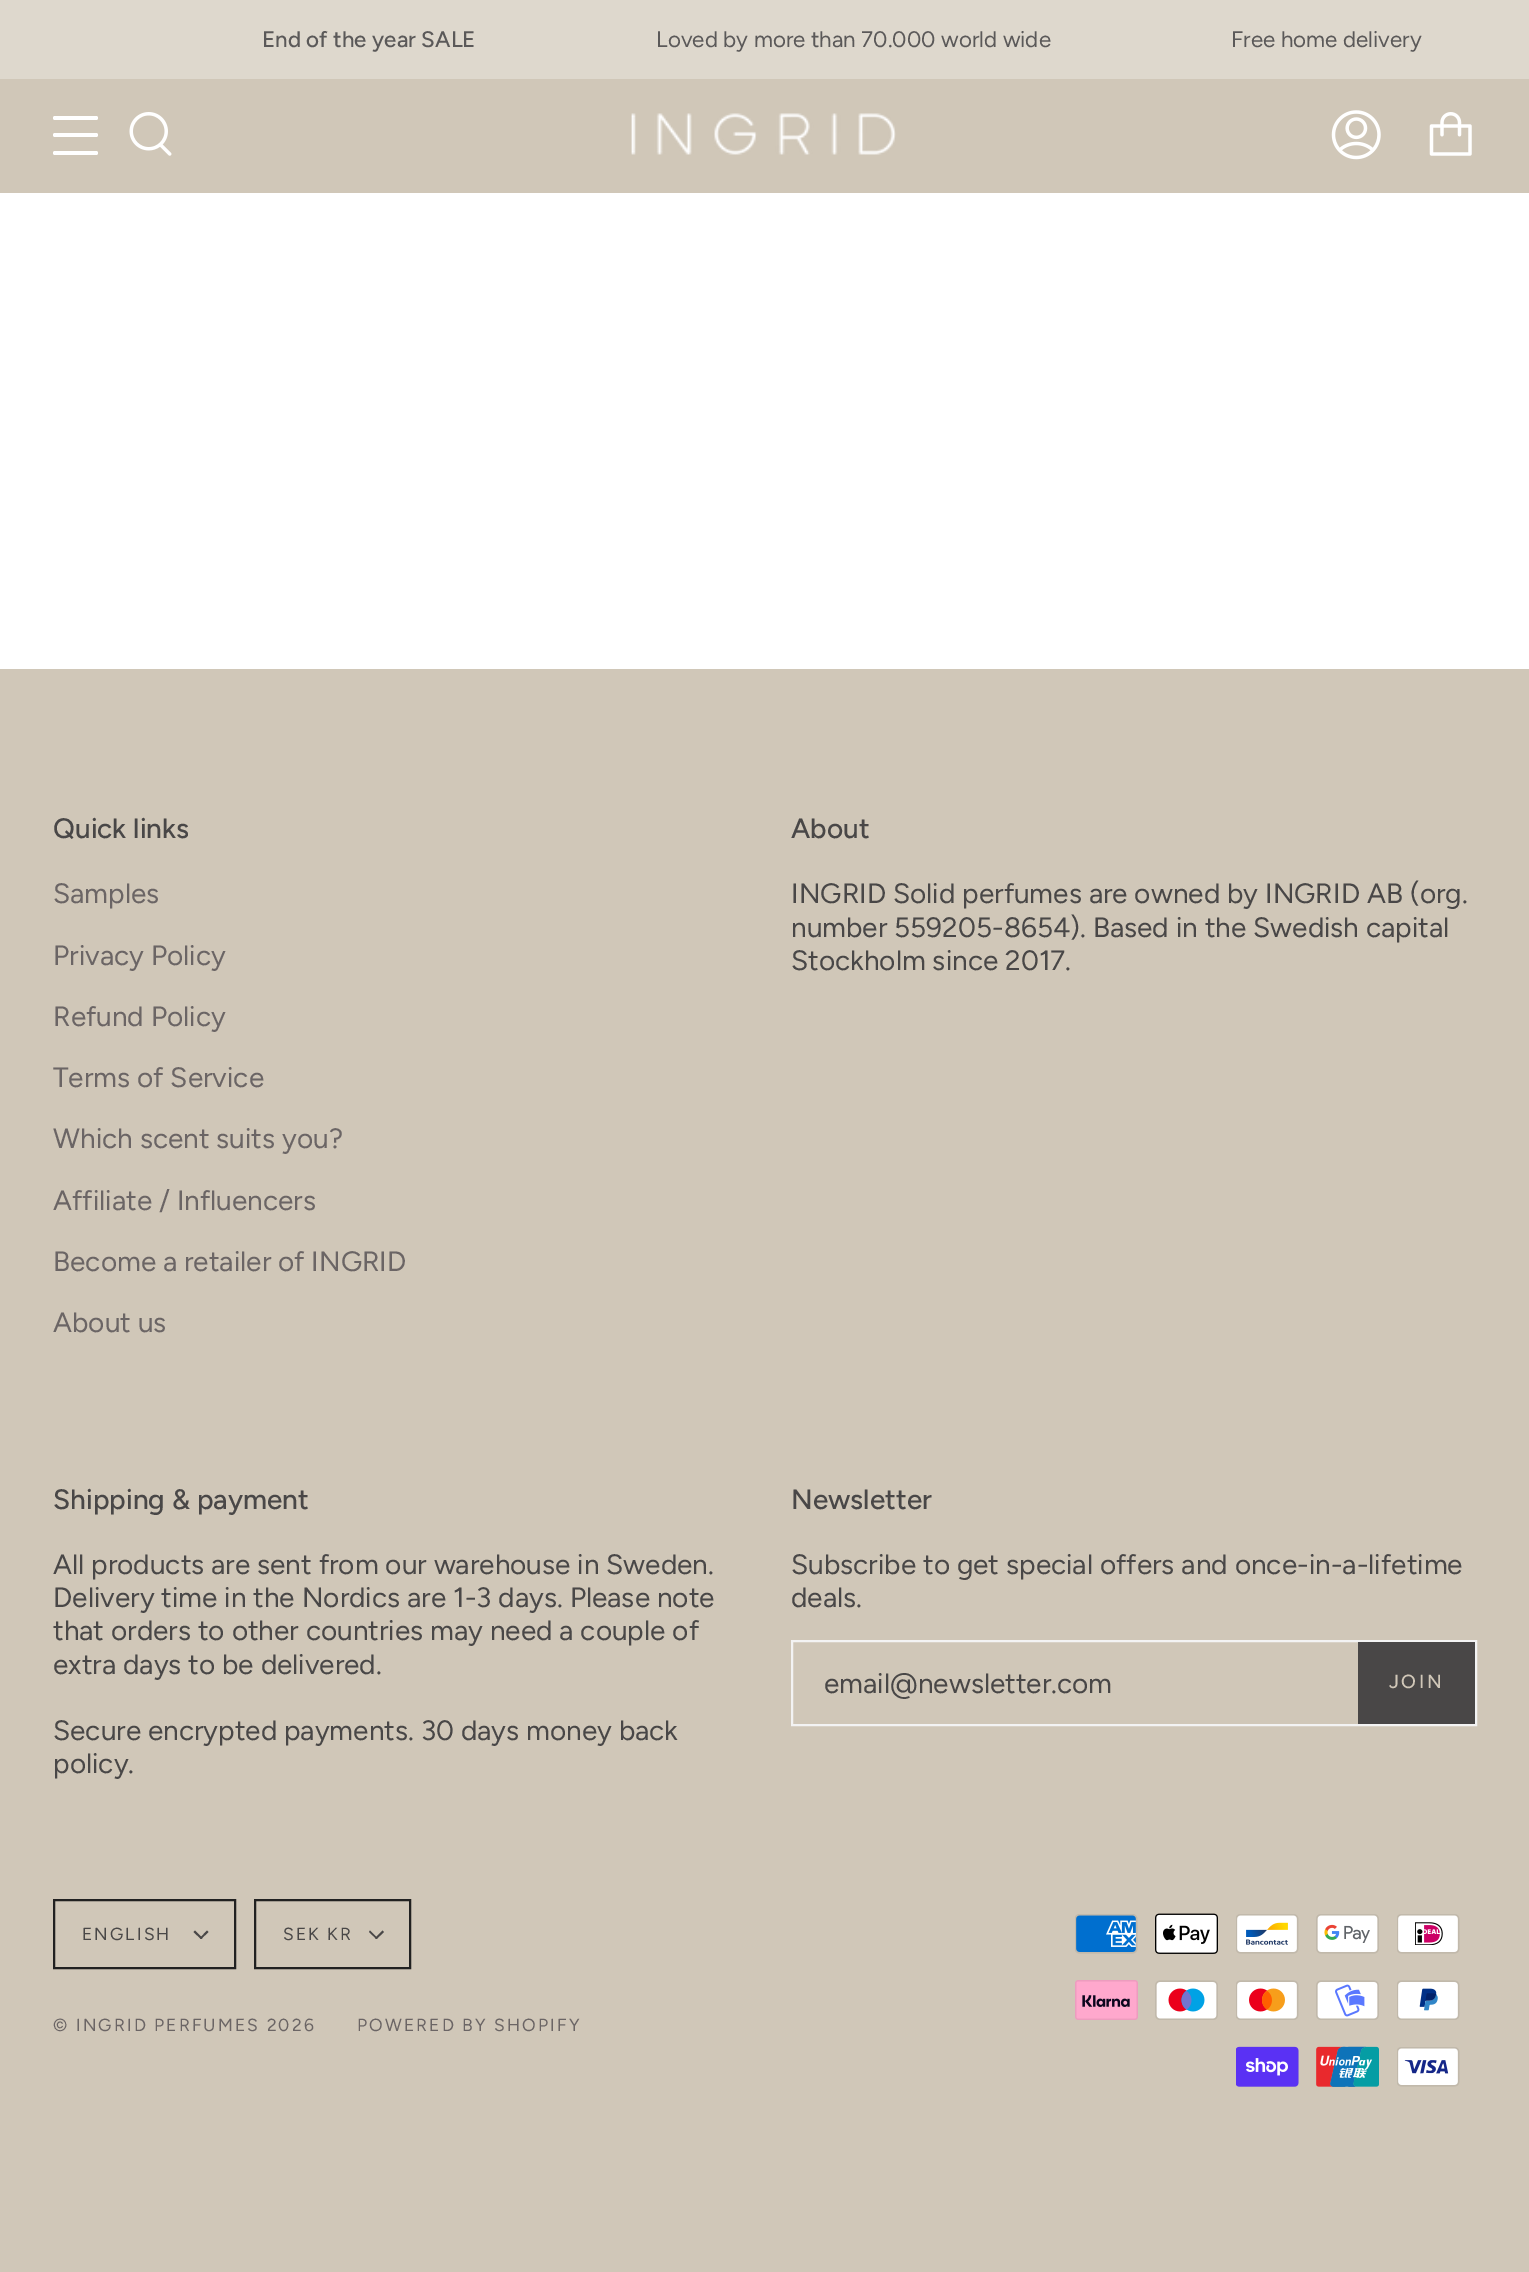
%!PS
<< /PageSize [1529 2272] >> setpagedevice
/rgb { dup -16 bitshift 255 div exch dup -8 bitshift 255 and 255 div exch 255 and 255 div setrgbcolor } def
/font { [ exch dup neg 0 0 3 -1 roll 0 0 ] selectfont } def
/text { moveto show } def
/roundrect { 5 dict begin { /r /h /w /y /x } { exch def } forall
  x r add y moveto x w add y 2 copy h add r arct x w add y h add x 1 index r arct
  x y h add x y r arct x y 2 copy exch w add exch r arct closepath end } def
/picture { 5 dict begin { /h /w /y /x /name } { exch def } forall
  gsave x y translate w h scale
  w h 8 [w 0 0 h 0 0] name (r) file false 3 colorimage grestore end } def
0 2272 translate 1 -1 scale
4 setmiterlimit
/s1 { /Figtree-Medium 22.4 font 16#5B5959 rgb } def
/s2 { /Figtree-Regular 22.4 font 16#5B5959 rgb } def
/s3 { /Figtree-Medium 28 font 16#494747 rgb } def
/s4 { /Figtree-Regular 28 font 16#6B6565 rgb } def
/s5 { /Figtree-Regular 28 font 16#494747 rgb } def
16#FFFFFF rgb
0 0 1529 2272 rectfill
16#DED8CD rgb
0 0 1529 79 rectfill
s1
(End of the year SALE) 262 47 text
s2
(Loved by more than 70.000 world wide) 656 47 text
(Free home delivery) 1231 47 text
16#D0C7B8 rgb
0 79 1529 114 rectfill
16#FFFFFF rgb
53 116 45 4 2 roundrect fill
53 133 45 4 2 roundrect fill
53 151 45 4 2 roundrect fill
(pic1.raw) 129 112 43 44 picture
(pic2.raw) 631 113 265 42 picture
(pic3.raw) 1331 110 50 50 picture
(pic4.raw) 1429 112 43 44 picture
16#D0C7B8 rgb
0 669 1529 1603 rectfill
s3
(Quick links) 53 838 text
s4
(Samples) 53 903 text
(Privacy Policy) 53 965 text
(Refund Policy) 53 1026 text
(Terms of Service) 53 1087 text
(Which scent suits you?) 53 1148 text
(Affiliate / Influencers) 53 1210 text
(Become a retailer of INGRID) 53 1271 text
(About us) 53 1332 text
s3
(About) 791 838 text
s5
(INGRID Solid perfumes are owned by INGRID AB \(org.) 791 903 text
(number 559205-8654\). Based in the Swedish capital) 791 937 text
(Stockholm since 2017.) 791 970 text
s3
(Shipping & payment) 53 1509 text
s5
(All products are sent from our warehouse in Sweden.) 53 1574 text
(Delivery time in the Nordics are 1-3 days. Please note) 53 1607 text
(that orders to other countries may need a couple of) 53 1640 text
(extra days to be delivered.) 53 1674 text
(Secure encrypted payments. 30 days money back) 53 1740 text
(policy.) 53 1773 text
s3
(Newsletter) 791 1509 text
s5
(Subscribe to get special offers and once-in-a-lifetime) 791 1574 text
(deals.) 791 1607 text
16#F3F3F3 rgb
2 setlinewidth
792 1641 684 84 rectstroke
s5
(email@newsletter.com) 824 1693 text
1358 1642 117 82 rectfill
/Figtree-Medium 19 font
16#D0C7B8 rgb
1389 1688 moveto 2.5 0 (JOIN) ashow
16#212121 rgb
54 1900 181 68 rectstroke
/Figtree-Regular 17.5 font
16#494747 rgb
82 1940 moveto 2.1 0 (ENGLISH) ashow
200 1938 moveto 207 1930.5 lineto 208.5 1932 lineto 201 1939 lineto closepath fill
193.5 1932 moveto 195 1930.5 lineto 202.5 1938 lineto 201 1939 lineto closepath fill
16#212121 rgb
255 1900 155 68 rectstroke
16#494747 rgb
283 1940 moveto 2.1 0 (SEK KR) ashow
375 1938 moveto 382.5 1930.5 lineto 384 1932 lineto 376.5 1939 lineto closepath fill
369 1932 moveto 370 1930.5 lineto 377.5 1938 lineto 376.5 1939 lineto closepath fill
16#6B6565 rgb
53 2031 moveto 2.1 0 (© INGRID PERFUMES 2026) ashow
357 2031 moveto 2.1 0 (POWERED BY SHOPIFY) ashow
(pic5.raw) 1075 1914 63 40 picture
(pic6.raw) 1155 1913 63 41 picture
(pic7.raw) 1236 1914 63 40 picture
(pic8.raw) 1316 1914 63 40 picture
(pic9.raw) 1397 1914 63 40 picture
(pic10.raw) 1075 1980 63 40 picture
(pic11.raw) 1155 1980 63 40 picture
(pic12.raw) 1236 1980 63 40 picture
(pic13.raw) 1316 1980 63 40 picture
(pic14.raw) 1397 1980 63 40 picture
(pic15.raw) 1236 2046 63 41 picture
(pic16.raw) 1316 2046 63 41 picture
(pic17.raw) 1397 2047 63 40 picture
showpage
